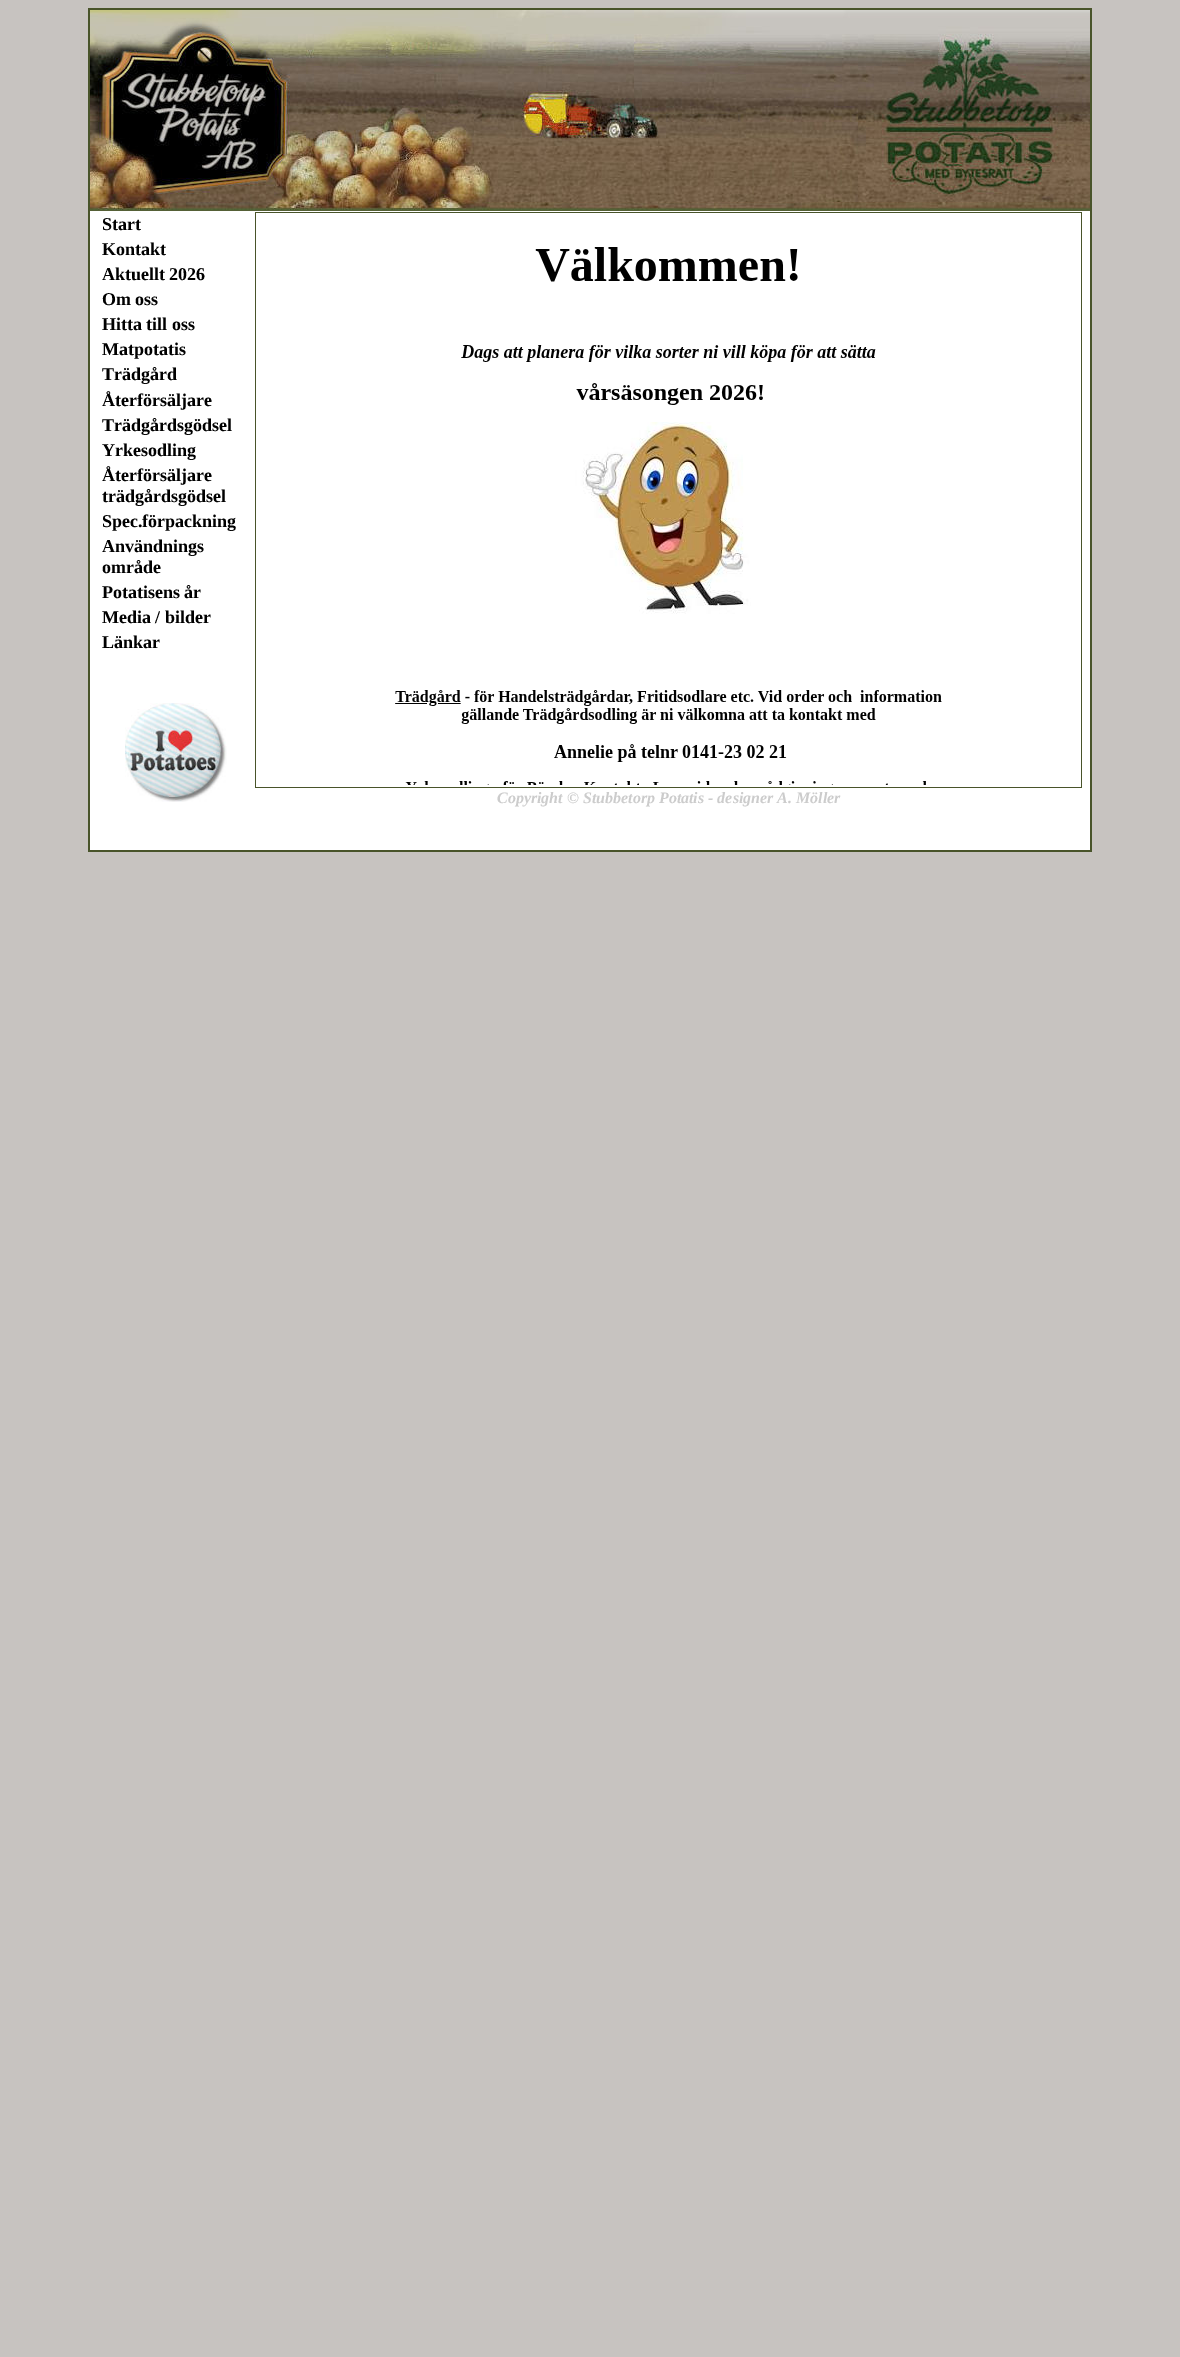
%!PS
<< /PageSize [1180 2357] >> setpagedevice
/rgb { dup -16 bitshift 255 div exch dup -8 bitshift 255 and 255 div exch 255 and 255 div setrgbcolor } def
/font { [ exch dup neg 0 0 3 -1 roll 0 0 ] selectfont } def
/text { moveto show } def
/picture { 5 dict begin { /h /w /y /x /name } { exch def } forall
  gsave x y translate w h scale
  w h 8 [w 0 0 h 0 0] name (r) file false 3 colorimage grestore end } def
0 2357 translate 1 -1 scale
4 setmiterlimit
/s1 { /LiberationSerif-Bold 18 font 16#000000 rgb } def
/s2 { /LiberationSerif-BoldItalic 16 font 16#CCCCCC rgb } def
16#C7C3C0 rgb
0 0 1180 2357 rectfill
16#FFFFFF rgb
90 211 1000 639 rectfill
16#49542A rgb
88 8 1004 2 rectfill
1090 8 2 844 rectfill
88 850 1004 2 rectfill
88 8 2 844 rectfill
(pic1.raw) 90 10 1000 201 picture
s1
(Start) 102 230 text
(Kontakt) 102 255 text
(Aktuellt 2026) 102 280 text
(Om oss) 102 305 text
(Hitta till oss) 102 330 text
(Matpotatis) 102 355 text
(Trädgård) 102 380 text
(Återförsäljare) 102 406 text
(Trädgårdsgödsel) 102 431 text
(Yrkesodling) 102 456 text
(Återförsäljare) 102 481 text
(trädgårdsgödsel) 102 502 text
(Spec.förpackning) 102 527 text
(Användnings) 102 552 text
(område) 102 573 text
(Potatisens år) 102 598 text
(Media / bilder) 102 623 text
(Länkar) 102 648 text
(pic2.raw) 125 703 102 99 picture
16#49542A rgb
255 212 827 1 rectfill
1081 212 1 576 rectfill
255 787 827 1 rectfill
255 212 1 576 rectfill
(pic3.raw) 395 247 547 538 picture
s2
(Copyright © Stubbetorp Potatis - designer A. Möller) 497 803 text
showpage
